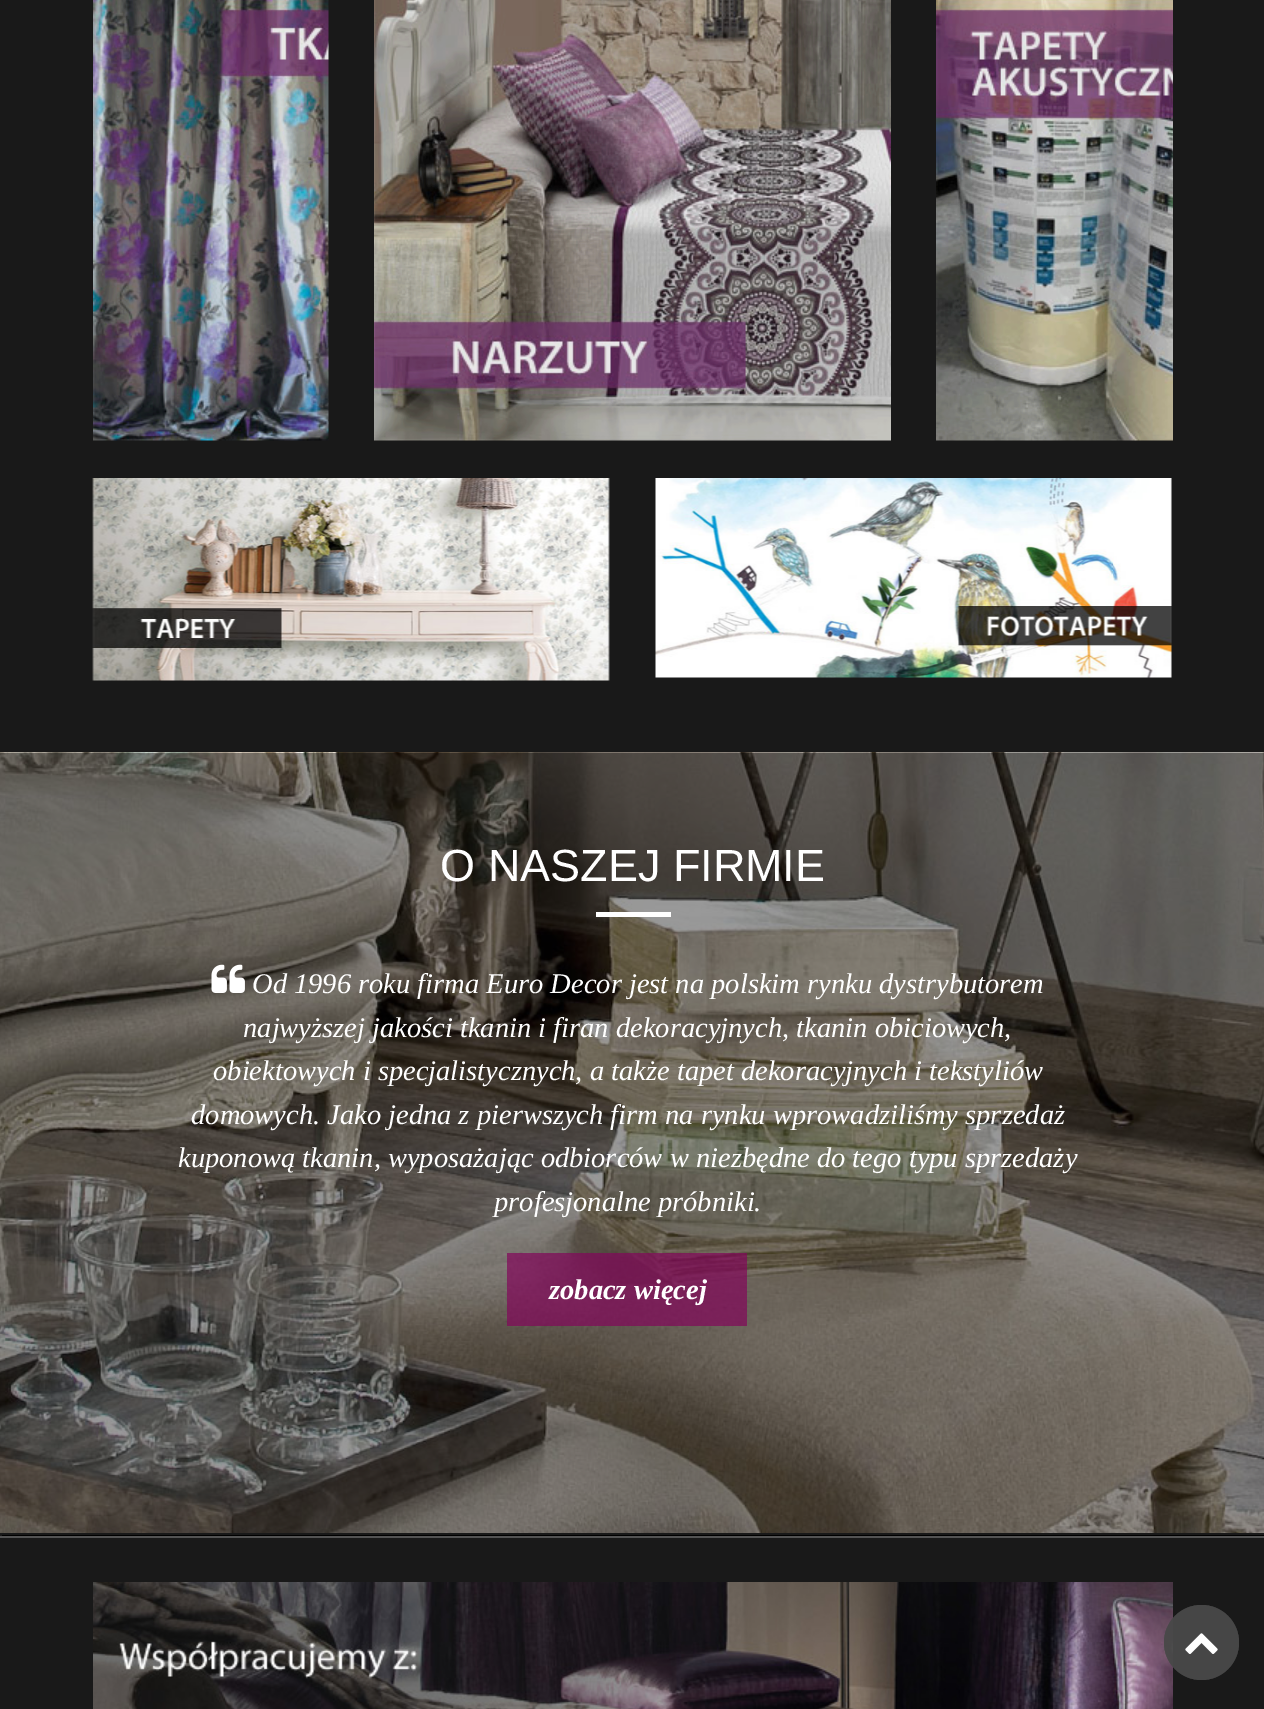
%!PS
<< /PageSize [1264 1709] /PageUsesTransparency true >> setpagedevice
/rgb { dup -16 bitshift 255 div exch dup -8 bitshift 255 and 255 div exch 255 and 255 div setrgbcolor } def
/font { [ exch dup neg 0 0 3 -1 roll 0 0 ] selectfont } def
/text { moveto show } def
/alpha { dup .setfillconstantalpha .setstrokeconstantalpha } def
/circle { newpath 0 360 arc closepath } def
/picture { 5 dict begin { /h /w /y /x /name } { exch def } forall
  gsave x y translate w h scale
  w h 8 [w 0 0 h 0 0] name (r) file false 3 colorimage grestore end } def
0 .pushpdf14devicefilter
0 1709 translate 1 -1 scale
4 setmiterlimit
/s1 { /LiberationSans-Regular 45 font 16#FFFFFF rgb } def
/s2 { /LiberationSerif-Italic 28.5 font 16#FFFFFF rgb } def
/s3 { /LiberationSerif-BoldItalic 28.5 font 16#FFFFFF rgb } def
16#191919 rgb
0 0 1264 1709 rectfill
(pic1.raw) 93 0 236 441 picture
(pic2.raw) 374 0 517 441 picture
(pic3.raw) 936 0 237 441 picture
(pic4.raw) 92 478 518 203 picture
(pic5.raw) 655 478 517 200 picture
(pic6.raw) 0 752 1264 781 picture
s1
(O NASZEJ FIRMIE) 440 881 text
596 912 75 5 rectfill
(pic7.raw) 211 964 34 29 picture
s2
(Od 1996 roku firma Euro Decor jest na polskim rynku dystrybutorem) 252 993 text
(najwyższej jakości tkanin i firan dekoracyjnych, tkanin obiciowych,) 243 1037 text
(obiektowych i specjalistycznych, a także tapet dekoracyjnych i tekstyliów) 213 1080 text
(domowych. Jako jedna z pierwszych firm na rynku wprowadziliśmy sprzedaż) 191 1124 text
(kuponową tkanin, wyposażając odbiorców w niezbędne do tego typu sprzedaży) 178 1167 text
(profesjonalne próbniki.) 494 1211 text
0.7 alpha
16#82065A rgb
507 1253 240 73 rectfill
1 alpha
s3
(zobacz więcej) 549 1299 text
16#000000 rgb
2 1535 moveto 2 1536 lineto 1264 1536 lineto 1264 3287 lineto 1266 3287 lineto 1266 1535 lineto closepath fill
16#535353 rgb
0 1536 1264 2 rectfill
(pic8.raw) 93 1582 1080 127 picture
0.8 alpha
16#484848 rgb
1201.5 1642.5 37.5 circle fill
1201.5 1642.5 37.5 circle fill
1 alpha
(pic9.raw) 1185 1633 33 21 picture
.poppdf14devicefilter showpage
